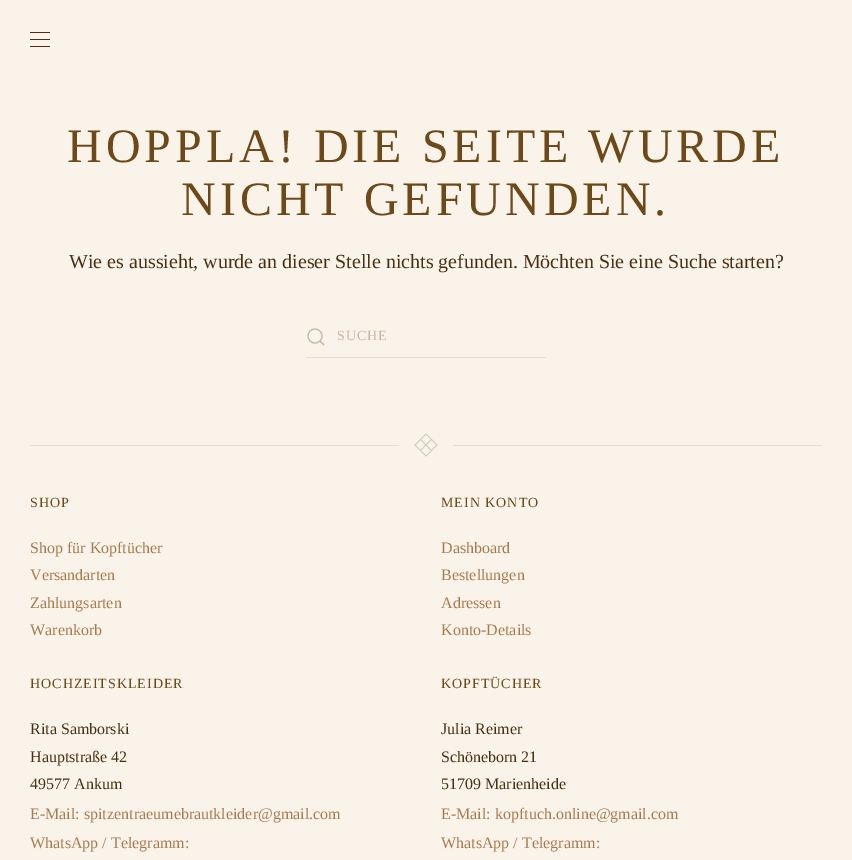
%!PS
<< /PageSize [852 860] /PageUsesTransparency true >> setpagedevice
/rgb { dup -16 bitshift 255 div exch dup -8 bitshift 255 and 255 div exch 255 and 255 div setrgbcolor } def
/font { [ exch dup neg 0 0 3 -1 roll 0 0 ] selectfont } def
/text { moveto show } def
/alpha { dup .setfillconstantalpha .setstrokeconstantalpha } def
/circle { newpath 0 360 arc closepath } def
/picture { 5 dict begin { /h /w /y /x /name } { exch def } forall
  gsave x y translate w h scale
  w h 8 [w 0 0 h 0 0] name (r) file false 3 colorimage grestore end } def
0 .pushpdf14devicefilter
0 860 translate 1 -1 scale
4 setmiterlimit
/s1 { /LiberationSerif-Regular 20 font 16#483112 rgb } def
/s2 { /LiberationSerif-Regular 16 font 16#A87B4F rgb } def
/s3 { /LiberationSerif-Regular 16 font 16#483112 rgb } def
16#F9F3E9 rgb
0 0 852 860 rectfill
16#483112 rgb
30 32 20 1 rectfill
30 39 20 1 rectfill
30 46 20 1 rectfill
/LiberationSerif-Regular 48 font
16#6D4919 rgb
67 162 moveto 4 0 (HOPPLA! DIE SEITE WURDE) ashow
181 215 moveto 4 0 (NICHT GEFUNDEN.) ashow
s1
(Wie es aussieht, wurde an dieser Stelle nichts gefunden. Möchten Sie eine Suche starten?) 69 268 text
16#C9B6A4 rgb
1.1 setlinewidth
315 336 7 circle stroke
0.8 alpha
16#BDA793 rgb
320 341 moveto 324 345 lineto closepath stroke
1 alpha
16#E4DDD1 rgb
306 357 240 1 rectfill
/LiberationSerif-Regular 14 font
16#C9B6A4 rgb
337 340 moveto 1 0 (SUCHE) ashow
(pic1.raw) 414 433 24 24 picture
16#E4DDD1 rgb
30 445 369 1 rectfill
453 445 369 1 rectfill
16#6D4919 rgb
30 507 moveto 1 0 (SHOP) ashow
s2
(Shop für Kopftücher) 30 553 text
(Versandarten) 30 580 text
(Zahlungsarten) 30 608 text
(Warenkorb) 30 635 text
/LiberationSerif-Regular 14 font
16#6D4919 rgb
441 507 moveto 1 0 (MEIN KONTO) ashow
s2
(Dashboard) 441 553 text
(Bestellungen) 441 580 text
(Adressen) 441 608 text
(Konto-Details) 441 635 text
/LiberationSerif-Regular 14 font
16#6D4919 rgb
30 688 moveto 1 0 (HOCHZEITSKLEIDER) ashow
s3
(Rita Samborski) 30 734 text
(Hauptstraße 42) 30 762 text
(49577 Ankum) 30 789 text
s2
(E-Mail: spitzentraeumebrautkleider@gmail.com) 30 819 text
(WhatsApp / Telegramm:) 30 848 text
/LiberationSerif-Regular 14 font
16#6D4919 rgb
441 688 moveto 1 0 (KOPFTÜCHER) ashow
s3
(Julia Reimer) 441 734 text
(Schöneborn 21) 441 762 text
(51709 Marienheide) 441 789 text
s2
(E-Mail: kopftuch.online@gmail.com) 441 819 text
(WhatsApp / Telegramm:) 441 848 text
.poppdf14devicefilter showpage
